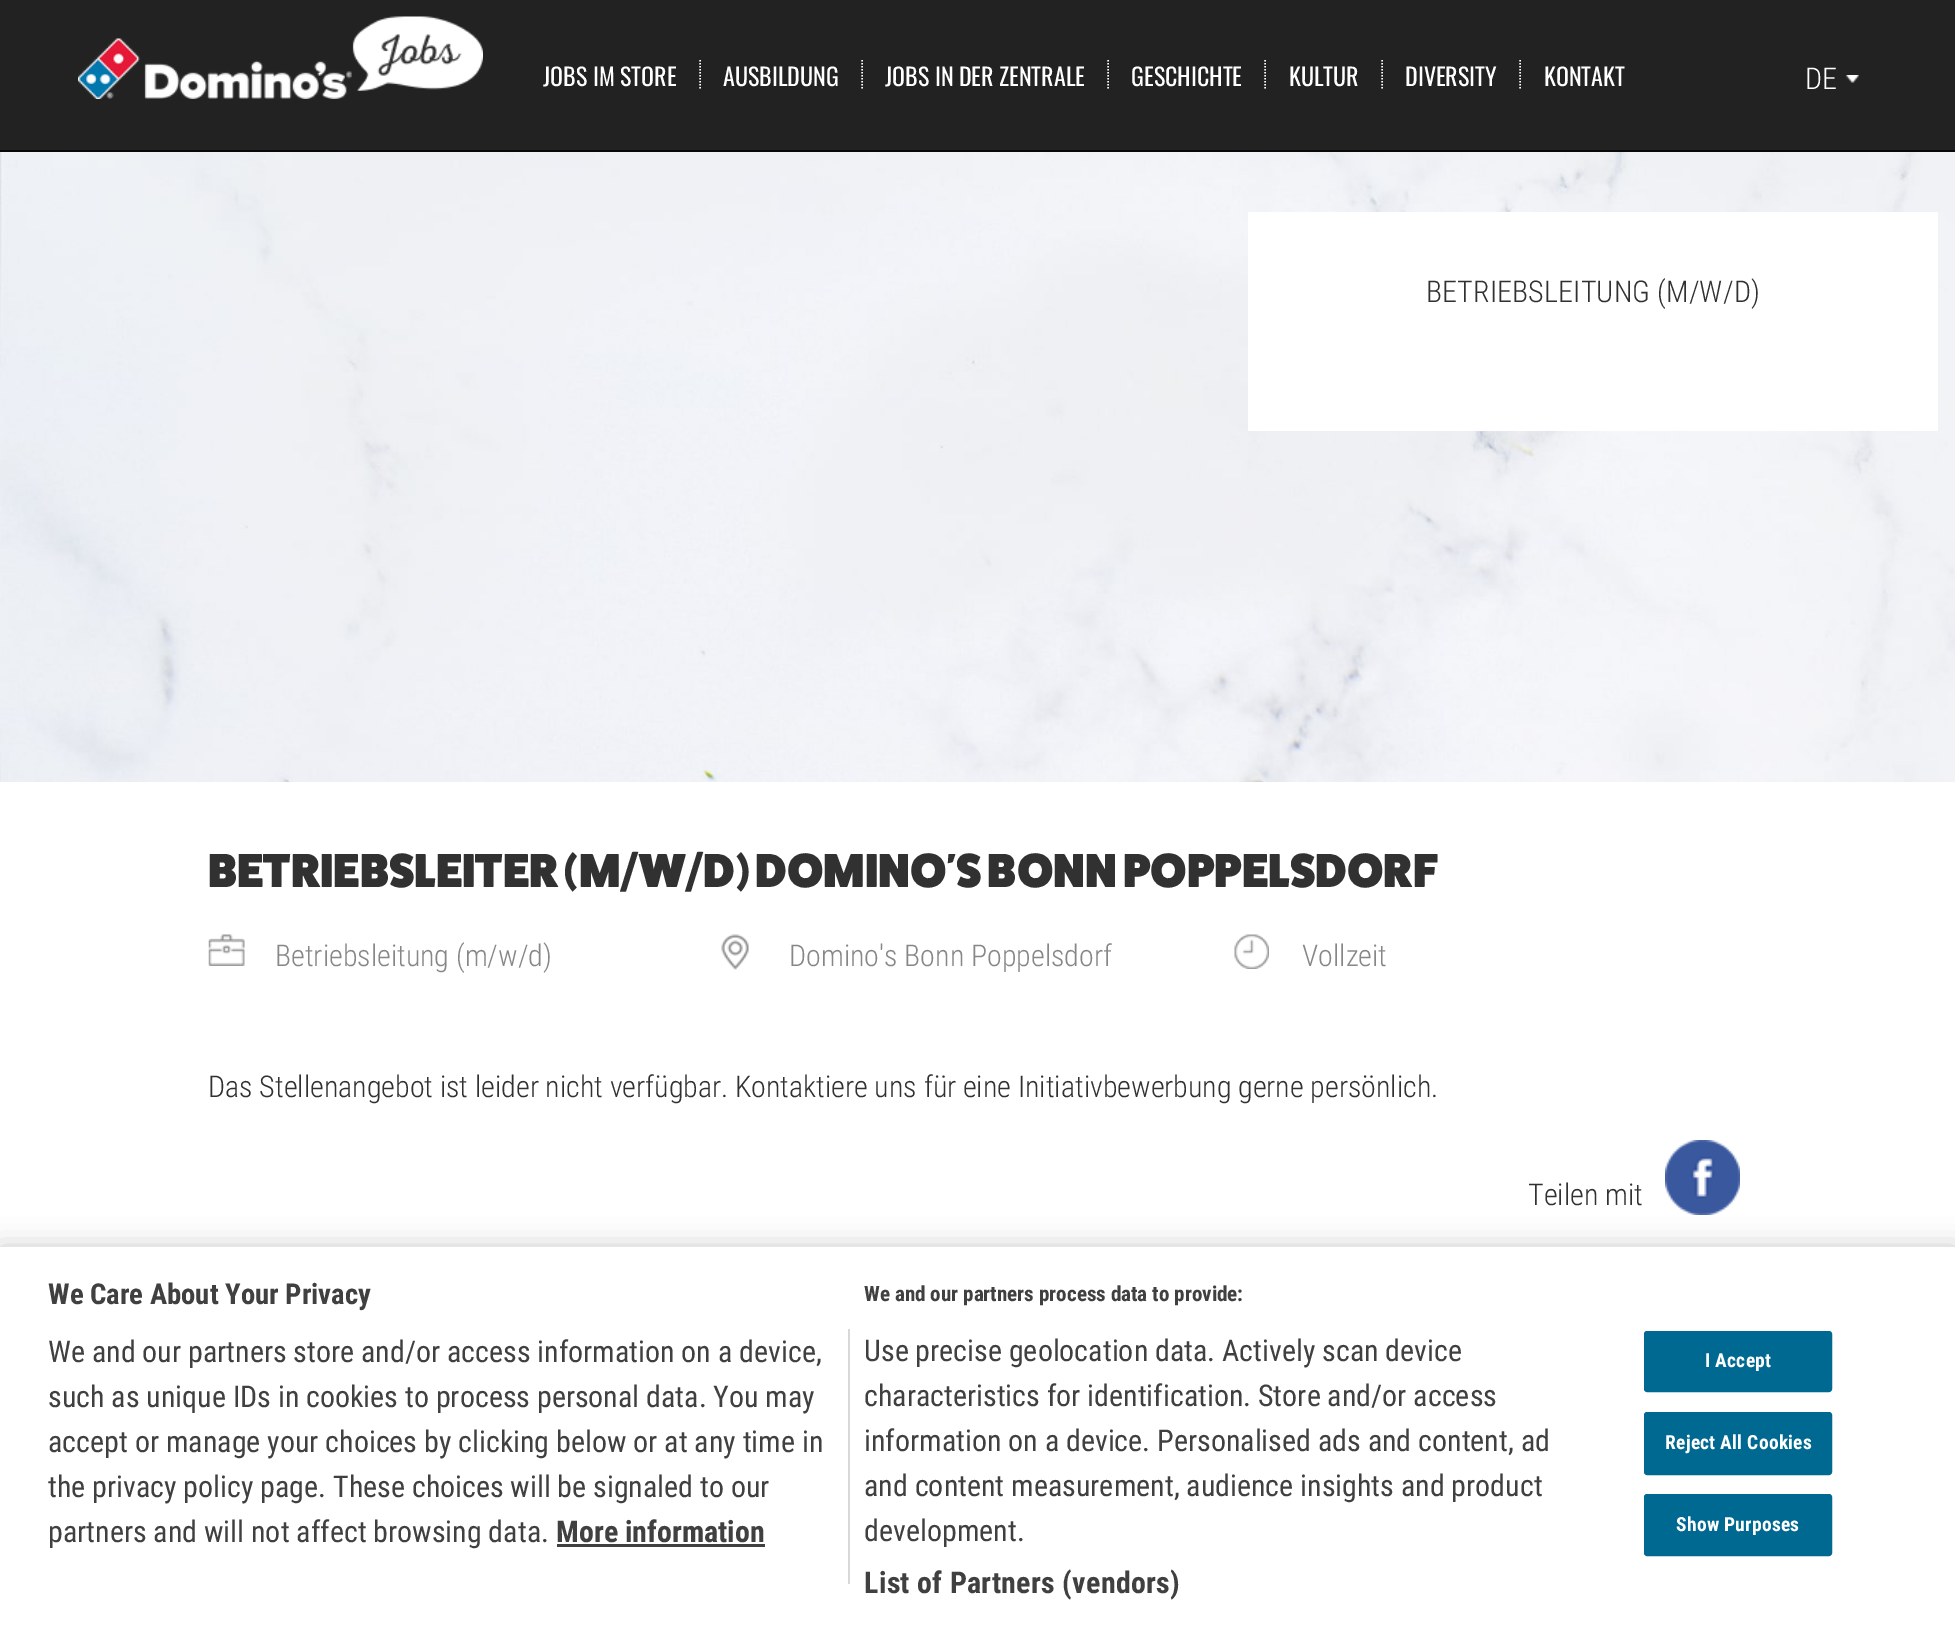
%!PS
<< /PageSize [1955 1634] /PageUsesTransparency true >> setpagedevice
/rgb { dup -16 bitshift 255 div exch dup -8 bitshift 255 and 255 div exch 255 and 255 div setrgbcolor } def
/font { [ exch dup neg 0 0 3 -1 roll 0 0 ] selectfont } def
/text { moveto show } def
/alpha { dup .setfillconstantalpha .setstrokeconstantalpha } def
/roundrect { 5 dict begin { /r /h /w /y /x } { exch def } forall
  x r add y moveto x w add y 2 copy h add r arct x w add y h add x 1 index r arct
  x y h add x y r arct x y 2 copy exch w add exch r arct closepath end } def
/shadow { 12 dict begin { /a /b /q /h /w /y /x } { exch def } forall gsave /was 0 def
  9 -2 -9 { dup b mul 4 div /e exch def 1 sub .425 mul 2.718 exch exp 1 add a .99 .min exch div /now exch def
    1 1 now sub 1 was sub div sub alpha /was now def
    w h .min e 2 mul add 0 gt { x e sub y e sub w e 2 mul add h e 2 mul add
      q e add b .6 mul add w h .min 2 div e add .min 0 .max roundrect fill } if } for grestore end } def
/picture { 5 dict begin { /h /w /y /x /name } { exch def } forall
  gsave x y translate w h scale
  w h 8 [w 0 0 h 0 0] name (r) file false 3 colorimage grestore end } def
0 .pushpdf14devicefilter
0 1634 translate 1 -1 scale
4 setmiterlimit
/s1 { /Oswald-Regular 24 font 16#FFFFFF rgb } def
/s2 { /RobotoCondensed-Light 30 font 16#FFFFFF rgb } def
/s3 { /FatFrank-Regular 48 font 16#313131 rgb } def
/s4 { /RobotoCondensed-Light 30 font 16#878787 rgb } def
/s5 { /RobotoCondensed-Light 30 font 16#313131 rgb } def
/s6 { /RobotoCondensed-Bold 28.75 font 16#404040 rgb } def
/s7 { /RobotoCondensed-Bold 21.1 font 16#404040 rgb } def
/s8 { /RobotoCondensed-Regular 30 font 16#404040 rgb } def
/s9 { /RobotoCondensed-Bold 30 font 16#404040 rgb } def
16#FFFFFF rgb
0 0 1955 1634 rectfill
(pic1.raw) 0 152 1955 630 picture
16#222222 rgb
0 0 1955 150 rectfill
16#080808 rgb
0 150 1955 2 rectfill
(pic2.raw) 78 16 405 83 picture
16#FFFFFF rgb
1.5 setlinewidth
[1.5 1.5] 0 setdash
700 60 moveto 700 90 lineto stroke
s1
(JOBS IM STORE) 543 86 text
862 60 moveto 862 90 lineto stroke
(AUSBILDUNG) 723 86 text
1108 60 moveto 1108 90 lineto stroke
(JOBS IN DER ZENTRALE) 885 86 text
1265 60 moveto 1265 90 lineto stroke
(GESCHICHTE) 1131 86 text
1382 60 moveto 1382 90 lineto stroke
(KULTUR) 1289 86 text
1520 60 moveto 1520 90 lineto stroke
(DIVERSITY) 1405 86 text
(KONTAKT) 1544 86 text
(pic3.raw) 1846 75 13 8 picture
s2
(DE) 1805 89 text
1248 212 690 219 rectfill
16#313131 rgb
1426 302 moveto 0.15 0 (BETRIEBSLEITUNG \(M/W/D\)) ashow
s3
(BETRIEBSLEITER \(M/W/D\) DOMINO'S BONN POPPELSDORF) 208 887 text
(pic4.raw) 208 934 37 32 picture
s4
(Betriebsleitung \(m/w/d\)) 275 966 text
(pic5.raw) 721 934 28 36 picture
(Domino's Bonn Poppelsdorf) 789 966 text
(pic6.raw) 1234 934 35 35 picture
(Vollzeit) 1302 966 text
s5
(Das Stellenangebot ist leider nicht verfügbar. Kontaktiere uns für eine Initiativbewerbung gerne persönlich.) 208 1097 text
(Teilen mit) 1528 1205 text
(pic7.raw) 1665 1140 75 75 picture
16#000000 rgb
0 1247 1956 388 0 13.5 0.2 shadow
16#FFFFFF rgb
0 1247 1955 387 rectfill
s6
(We Care About Your Privacy) 48 1304 text
s7
(We and our partners process data to provide:) 864 1301 text
s8
(Use precise geolocation data. Actively scan device) 864 1361 text
(characteristics for identification. Store and/or access) 864 1406 text
(information on a device. Personalised ads and content, ad) 864 1451 text
(and content measurement, audience insights and product) 864 1496 text
(development.) 864 1541 text
/RobotoCondensed-Bold 30 font
864 1593 moveto 0.3 0 (List of Partners \(vendors\)) ashow
16#D8D8D8 rgb
848 1329 2 255 rectfill
s8
(We and our partners store and/or access information on a device,) 48 1362 text
(such as unique IDs in cookies to process personal data. You may) 48 1407 text
(accept or manage your choices by clicking below or at any time in) 48 1452 text
(the privacy policy page. These choices will be signaled to our) 48 1497 text
(partners and will not affect browsing data.) 48 1542 text
s9
(More information) 556 1542 text
557 1544 208 3 rectfill
16#006991 rgb
1645 1332 186 59 2 roundrect gsave fill grestore
2 setlinewidth
[] 0 setdash
stroke
/RobotoCondensed-Bold 19.5 font
16#FFFFFF rgb
1705 1367 moveto 0.25 0 (I Accept) ashow
16#006991 rgb
1645 1413 186 61 2 roundrect gsave fill grestore
stroke
16#FFFFFF rgb
1665 1449 moveto 0.25 0 (Reject All Cookies) ashow
16#006991 rgb
1645 1495 186 60 2 roundrect gsave fill grestore
stroke
16#FFFFFF rgb
1676 1531 moveto 0.25 0 (Show Purposes) ashow
.poppdf14devicefilter showpage
